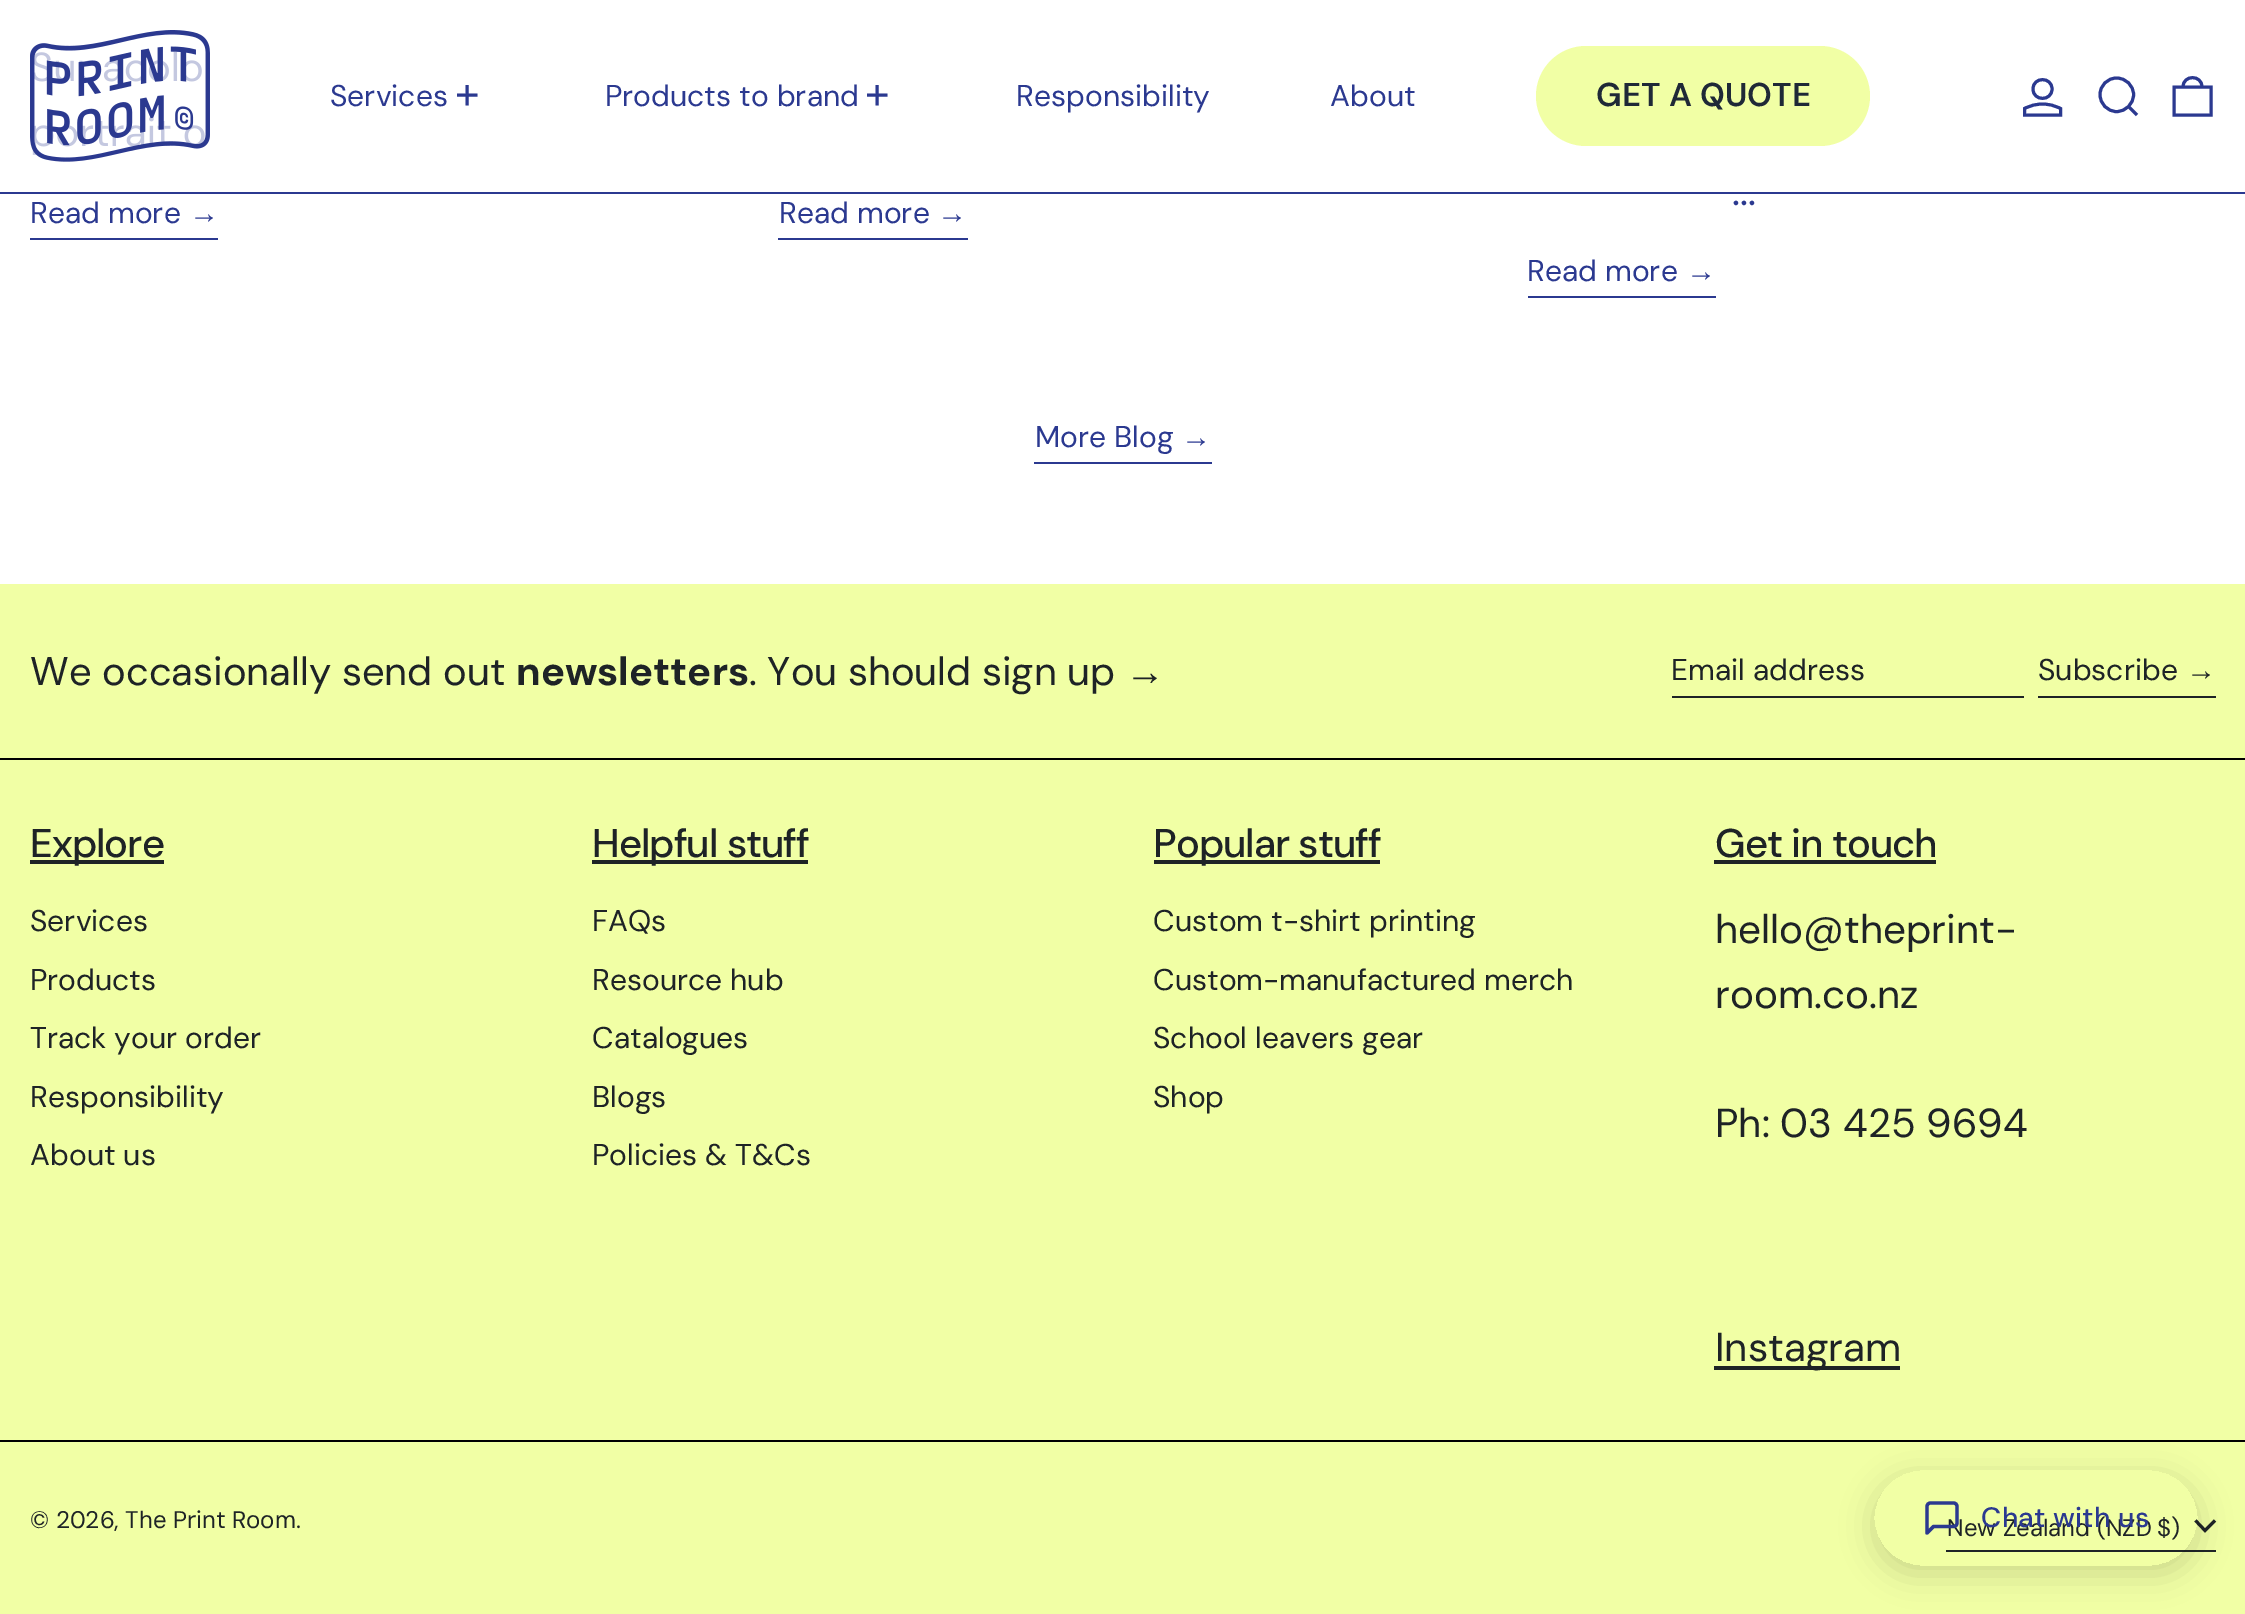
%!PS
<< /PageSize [2245 1614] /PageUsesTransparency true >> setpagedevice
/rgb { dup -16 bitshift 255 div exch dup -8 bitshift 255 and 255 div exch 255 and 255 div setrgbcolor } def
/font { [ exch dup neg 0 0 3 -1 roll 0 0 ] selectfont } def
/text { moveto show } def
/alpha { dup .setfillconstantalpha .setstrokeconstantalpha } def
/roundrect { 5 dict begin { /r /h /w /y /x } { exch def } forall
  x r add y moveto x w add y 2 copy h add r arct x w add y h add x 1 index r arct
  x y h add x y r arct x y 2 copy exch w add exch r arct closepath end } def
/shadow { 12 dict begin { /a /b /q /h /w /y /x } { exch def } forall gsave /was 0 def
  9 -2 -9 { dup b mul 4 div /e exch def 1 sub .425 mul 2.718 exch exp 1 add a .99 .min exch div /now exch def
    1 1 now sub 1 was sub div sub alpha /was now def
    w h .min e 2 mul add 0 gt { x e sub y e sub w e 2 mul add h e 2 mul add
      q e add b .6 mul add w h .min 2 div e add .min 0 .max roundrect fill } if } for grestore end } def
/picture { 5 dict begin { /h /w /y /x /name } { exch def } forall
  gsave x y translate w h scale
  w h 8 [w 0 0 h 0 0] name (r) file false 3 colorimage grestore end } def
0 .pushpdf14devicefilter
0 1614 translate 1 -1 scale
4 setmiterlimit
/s1 { /DMSans-Regular 30 font 16#2B3990 rgb } def
/s2 { /DMSans-SemiBold 33 font 16#1F2937 rgb } def
/s3 { /LiberationSans-Regular 30 font 16#2B3990 rgb } def
/s4 { /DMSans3-Regular 40.5 font 16#2B3990 rgb } def
/s5 { /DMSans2-Regular 40 font 16#1E2326 rgb } def
/s6 { /DMSans-Bold 40 font 16#1E2326 rgb } def
/s7 { /LiberationSans-Regular 40 font 16#1E2326 rgb } def
/s8 { /DMSans-Regular 30 font 16#1E2326 rgb } def
/s9 { /LiberationSans-Regular 30 font 16#1E2326 rgb } def
/s10 { /DMSans3-Regular 40.5 font 16#1E2326 rgb } def
/s11 { /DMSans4-Regular 24 font 16#1E2326 rgb } def
16#FFFFFF rgb
0 0 2245 1614 rectfill
16#2B3990 rgb
0 192 2245 2 rectfill
(pic1.raw) 30 30 180 132 picture
s1
(Services) 330 106 text
3 setlinewidth
467 85 moveto 467 105.5 lineto 457 95 moveto 477.5 95 lineto stroke
(Products to brand) 605 106 text
877 85 moveto 877 105.5 lineto 867 95 moveto 887.5 95 lineto stroke
(Responsibility) 1016 106 text
(About) 1330 106 text
16#F1FFA5 rgb
1536 46 334 100 50 roundrect fill
s2
(GET A QUOTE) 1596 106 text
16#2B3990 rgb
2042.5 104 moveto 2036.5 104 2030 105.5 2024.5 108.5 curveto 2024.5 115 lineto 2060.5 115 lineto 2060.5 108.5 lineto 2055 105.5 2048.5 104 2042.5 104 curveto closepath 2033 89 moveto 2033 101.5 2052 101.5 2052 89 curveto 2052 76.5 2033 76.5 2033 89 curveto closepath stroke
2100 94.5 moveto 2100 104 2107.5 111.5 2116.5 111.5 curveto 2126 111.5 2133.5 104 2133.5 94.5 curveto 2133.5 85.5 2126 78 2116.5 78 curveto 2107.5 78 2100 85.5 2100 94.5 curveto closepath 2128.5 106.5 moveto 2137 115 lineto stroke
2174 87 moveto 2211 87 lineto 2211 115 lineto 2174 115 lineto closepath 2202 87 moveto 2202 74.5 2183 74.5 2183 87 curveto stroke
30 238 188 2 rectfill
s1
(Read more) 30 223 text
s3
(→) 189 223 text
778 238 190 2 rectfill
s1
(Read more) 779 223 text
s3
(→) 937 223 text
s4
(...) 1732 205 text
1528 296 188 2 rectfill
s1
(Read more) 1527 281 text
s3
(→) 1686 281 text
1034 462 178 2 rectfill
s1
(More Blog) 1035 447 text
s3
(→) 1181 447 text
16#F1FFA5 rgb
0 584 2245 1030 rectfill
16#000000 rgb
0 758 2245 2 rectfill
s5
(We occasionally send out) 30 685 text
s6
(newsletters) 516 685 text
s5
(. You should sign up) 749 685 text
s7
(→) 1125 685 text
1672 696 352 2 rectfill
s8
(Email address) 1671 680 text
2038 696 178 2 rectfill
(Subscribe) 2038 680 text
s9
(→) 2186 680 text
16#000000 rgb
0 1440 2245 2 rectfill
16#1E2326 rgb
30 860 134 4 rectfill
/DMSans-Medium 40 font
30 857 moveto -1 0 (Explore) ashow
s8
(Services) 30 931 text
(Products) 30 990 text
(Track your order) 30 1048 text
(Responsibility) 30 1107 text
(About us) 30 1165 text
592 860 216 4 rectfill
/DMSans-Medium 40 font
592 857 moveto -1 0 (Helpful stuff) ashow
s8
(FAQs) 592 931 text
(Resource hub) 592 990 text
(Catalogues) 592 1048 text
(Blogs) 592 1107 text
(Policies & T&Cs) 592 1165 text
1154 860 226 4 rectfill
/DMSans-Medium 40 font
1153 857 moveto -1 0 (Popular stuff) ashow
s8
(Custom t-shirt printing) 1153 931 text
(Custom-manufactured merch) 1153 990 text
(School leavers gear) 1153 1048 text
(Shop) 1153 1107 text
/DMSans-Medium 40 font
1715 857 moveto -1 0 (Get in touch) ashow
1714 860 222 4 rectfill
s10
(hello@theprint-) 1715 943 text
(room.co.nz) 1715 1008 text
(Ph: 03 425 9694) 1715 1137 text
1714 1366 186 4 rectfill
(Instagram) 1715 1361 text
s11
(© 2026,) 30 1528 text
(The Print Room) 125 1528 text
(.) 296 1528 text
1946 1550 270 2 rectfill
(New Zealand \(NZD) 1947 1536 text
($\)) 2157 1536 text
2195.5 1520.5 moveto 2205 1530.5 lineto 2215 1520.5 lineto stroke
gsave
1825 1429 moveto 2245 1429 lineto 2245 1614 lineto 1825 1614 lineto closepath 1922 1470 moveto 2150 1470 lineto 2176.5 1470 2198 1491.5 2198 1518 curveto 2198 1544.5 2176.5 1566 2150 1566 curveto 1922 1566 lineto 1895.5 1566 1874 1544.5 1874 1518 curveto 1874 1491.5 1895.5 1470 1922 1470 curveto closepath eoclip newpath
16#000000 rgb
1874 1478 324 96 48 16 0.15 shadow
grestore
16#2B3990 rgb
3.3 setlinewidth
1 setlinecap
1 setlinejoin
1957 1523 moveto 1957 1525 1955.5 1526.5 1953.5 1526.5 curveto 1933.5 1526.5 lineto 1927 1533 lineto 1927 1506.5 lineto 1927 1504.5 1928.5 1503 1930.5 1503 curveto 1953.5 1503 lineto 1955.5 1503 1957 1504.5 1957 1506.5 curveto closepath stroke
/DMSans2-Medium 28 font
1981 1527 moveto 0.25 0 (Chat with us) ashow
.poppdf14devicefilter showpage
